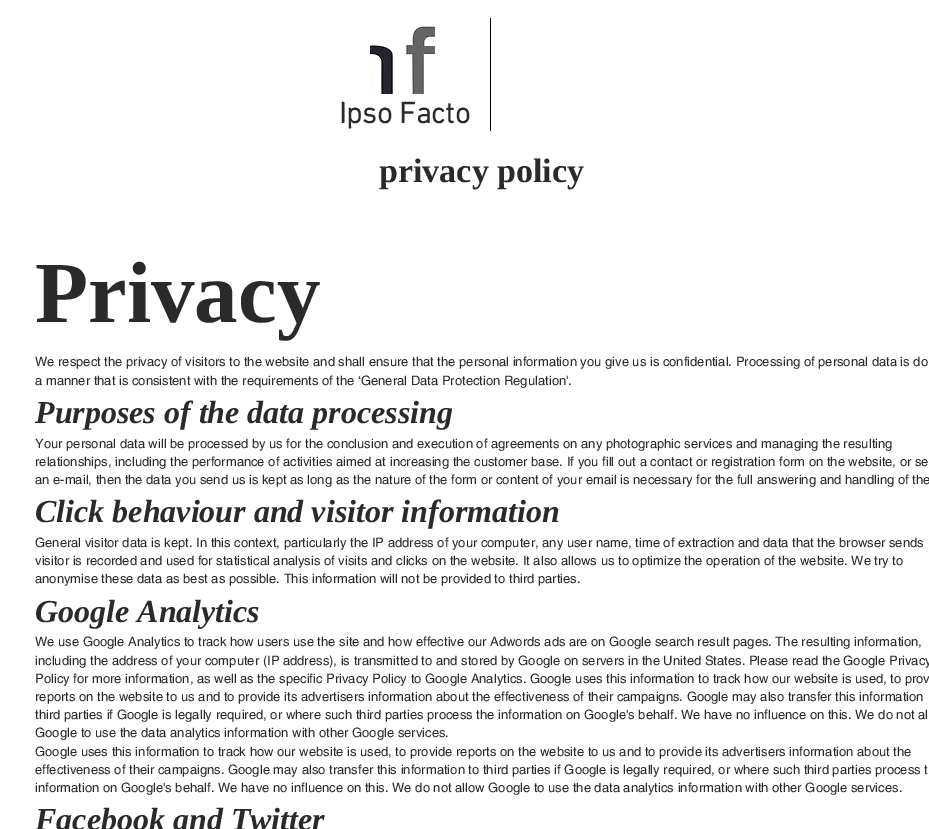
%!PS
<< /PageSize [929 829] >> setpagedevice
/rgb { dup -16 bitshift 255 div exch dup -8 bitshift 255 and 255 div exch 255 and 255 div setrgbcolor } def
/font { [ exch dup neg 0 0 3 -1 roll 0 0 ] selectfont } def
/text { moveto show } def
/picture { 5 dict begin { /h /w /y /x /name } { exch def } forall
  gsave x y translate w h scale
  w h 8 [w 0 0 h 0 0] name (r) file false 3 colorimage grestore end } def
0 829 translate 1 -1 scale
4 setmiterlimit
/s1 { /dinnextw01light-Bold 30 font 16#2A2A2A rgb } def
/s2 { /LiberationSerif-Bold 34 font 16#2A2A2A rgb } def
/s3 { /LiberationSerif-Bold 87 font 16#2A2A2A rgb } def
/s4 { /helvetica-Regular 13 font 16#2A2A2A rgb } def
/s5 { /LiberationSerif-BoldItalic 32 font 16#2A2A2A rgb } def
16#FFFFFF rgb
0 0 929 829 rectfill
(pic1.raw) 370 26 65 68 picture
16#000000 rgb
490 18 1 113 rectfill
s1
(Ipso Facto) 339 123 text
s2
(privacy policy) 379 182 text
s3
(Privacy) 35 322 text
s4
(We respect the privacy of visitors to the website and shall ensure that the personal information you give us is confidential. Processing of personal data is do) 35 366 text
(a manner that is consistent with the requirements of the ‘General Data Protection Regulation'.) 35 385 text
s5
(Purposes of the data processing) 35 423 text
s4
(Your personal data will be processed by us for the conclusion and execution of agreements on any photographic services and managing the resulting) 35 448 text
(relationships, including the performance of activities aimed at increasing the customer base. If you fill out a contact or registration form on the website, or se) 35 466 text
(an e-mail, then the data you send us is kept as long as the nature of the form or content of your email is necessary for the full answering and handling of the) 35 484 text
s5
(Click behaviour and visitor information) 35 522 text
s4
(General visitor data is kept. In this context, particularly the IP address of your computer, any user name, time of extraction and data that the browser sends) 35 547 text
(visitor is recorded and used for statistical analysis of visits and clicks on the website. It also allows us to optimize the operation of the website. We try to) 35 565 text
(anonymise these data as best as possible. This information will not be provided to third parties.) 35 583 text
s5
(Google Analytics) 35 622 text
s4
(We use Google Analytics to track how users use the site and how effective our Adwords ads are on Google search result pages. The resulting information,) 35 646 text
(including the address of your computer \(IP address\), is transmitted to and stored by Google on servers in the United States. Please read the Google Privacy) 35 665 text
(Policy for more information, as well as the specific Privacy Policy to Google Analytics. Google uses this information to track how our website is used, to prov) 35 683 text
(reports on the website to us and to provide its advertisers information about the effectiveness of their campaigns. Google may also transfer this information) 35 701 text
(third parties if Google is legally required, or where such third parties process the information on Google's behalf. We have no influence on this. We do not al) 35 719 text
(Google to use the data analytics information with other Google services.) 35 737 text
(Google uses this information to track how our website is used, to provide reports on the website to us and to provide its advertisers information about the) 35 756 text
(effectiveness of their campaigns. Google may also transfer this information to third parties if Google is legally required, or where such third parties process t) 35 774 text
(information on Google's behalf. We have no influence on this. We do not allow Google to use the data analytics information with other Google services.) 35 792 text
s5
(Facebook and Twitter) 35 830 text
showpage
